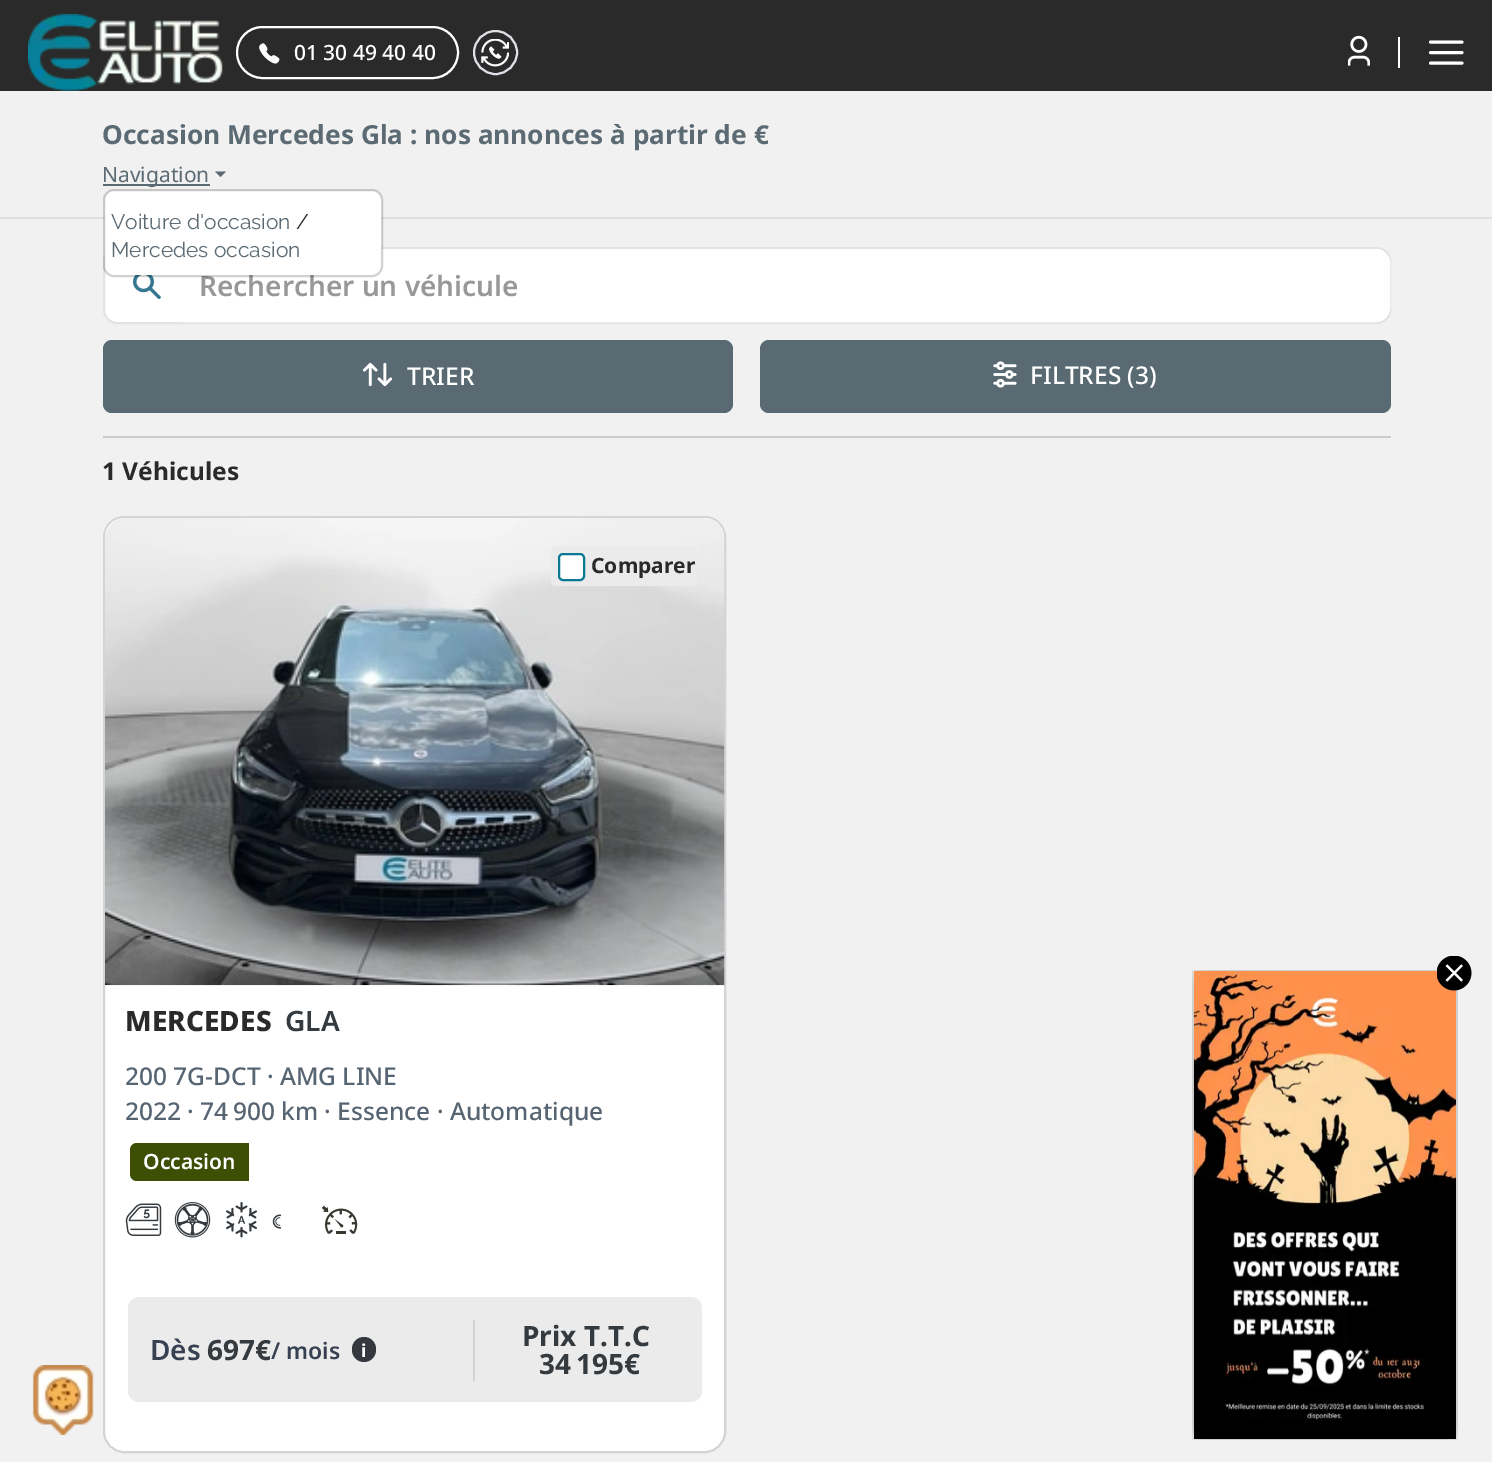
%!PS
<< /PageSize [1492 1462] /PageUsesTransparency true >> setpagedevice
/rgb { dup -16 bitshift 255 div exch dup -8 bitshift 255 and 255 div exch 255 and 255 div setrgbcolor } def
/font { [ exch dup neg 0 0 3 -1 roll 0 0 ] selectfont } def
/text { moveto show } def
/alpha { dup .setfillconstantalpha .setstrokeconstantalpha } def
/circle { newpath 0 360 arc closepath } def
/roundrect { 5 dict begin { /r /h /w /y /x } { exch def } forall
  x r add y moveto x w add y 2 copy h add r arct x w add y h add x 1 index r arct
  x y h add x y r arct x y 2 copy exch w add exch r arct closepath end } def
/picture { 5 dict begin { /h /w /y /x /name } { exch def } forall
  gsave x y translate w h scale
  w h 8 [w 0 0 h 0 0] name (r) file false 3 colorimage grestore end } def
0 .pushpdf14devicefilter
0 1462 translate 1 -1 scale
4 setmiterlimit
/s1 { /NotoSans-Medium 21 font 16#FFFFFF rgb } def
/s2 { /NotoSans-Bold 26.25 font 16#5B6A73 rgb } def
/s3 { /NotoSans-Regular 21 font 16#5B6A73 rgb } def
/s4 { /NotoSans-SemiBold 28 font 16#989898 rgb } def
/s5 { /Raleway-Regular 21 font 16#5B6A73 rgb } def
/s6 { /Raleway-Regular 21 font 16#212529 rgb } def
/s7 { /NotoSans-Medium 24.5 font 16#FFFFFF rgb } def
/s8 { /NotoSans-Bold 24.5 font 16#2A2A2A rgb } def
/s9 { /NotoSans-Bold 21 font 16#2A2A2A rgb } def
/s10 { /NotoSans-ExtraBold 28 font 16#2A2A2A rgb } def
/s11 { /NotoSans-SemiBold 28 font 16#353A3F rgb } def
/s12 { /NotoSans-Medium 24.5 font 16#576471 rgb } def
/s13 { /NotoSans-SemiBold 21 font 16#FFFFFF rgb } def
/s14 { /NotoSans-SemiBold 28 font 16#374151 rgb } def
/s15 { /NotoSans-Bold 28 font 16#353A3F rgb } def
/s16 { /NotoSans-SemiBold 23 font 16#374151 rgb } def
/s17 { /NotoSans-Bold 18 font 16#FFFFFF rgb } def
16#F1F1F1 rgb
0 0 1492 1462 rectfill
16#2A2A2A rgb
0 0 1492 91 rectfill
(pic1.raw) 28 14 195 77 picture
16#FFFFFF rgb
2 setlinewidth
237 27 221 51 25.5 roundrect stroke
(pic2.raw) 259 43 21 21 picture
s1
(01 30 49 40 40) 294 60 text
16#DEE2E6 rgb
495.5 52.5 21.5 circle stroke
(pic3.raw) 481 39 28 28 picture
(pic4.raw) 1348 35 22 31 picture
16#FFFFFF rgb
1398 37 2 31 rectfill
3 setlinewidth
1 setlinecap
1 setlinejoin
1430.5 42 moveto 1462 42 lineto 1430.5 52.5 moveto 1462 52.5 lineto 1430.5 63 moveto 1462 63 lineto stroke
(pic5.raw) 32 1365 62 70 picture
16#DDE1E3 rgb
0 217 1492 2 rectfill
s2
(Occasion Mercedes Gla : nos annonces à partir de €) 102 144 text
103 184 107 2 rectfill
s3
(Navigation) 102 182 text
215 171.5 moveto 226 171.5 lineto 220.5 177 lineto closepath fill
16#FFFFFF rgb
104 248 1286 75 13 roundrect gsave fill grestore
16#E3E3E3 rgb
2 setlinewidth
0 setlinecap
0 setlinejoin
stroke
16#FFFFFF rgb
184 251 moveto 1376 251 lineto 1382.5 251 1388 256.5 1388 263 curveto 1388 308 lineto 1388 314.5 1382.5 320 1376 320 curveto 184 320 lineto closepath gsave fill grestore
4 setlinewidth
stroke
s4
(Rechercher un véhicule) 199 296 text
16#FFFFFF rgb
105 191 277 84 9 roundrect fill
(pic6.raw) 133 275 28 24 picture
0.18 alpha
16#000000 rgb
2 setlinewidth
104 190 278 86 10 roundrect stroke
1 alpha
s5
(Voiture d'occasion) 111 229 text
s6
(/) 296 229 text
s5
(Mercedes occasion) 111 257 text
16#596A73 rgb
103 340 630 73 9 roundrect fill
(pic7.raw) 363 362 30 25 picture
s7
(TRIER) 407 385 text
16#596A73 rgb
760 340 631 73 9 roundrect fill
(pic8.raw) 993 361 24 27 picture
s7
(FILTRES \(3\)) 1030 384 text
16#C8CACE rgb
103 436 1288 2 rectfill
s8
(1 Véhicules) 102 480 text
16#FFFFFF rgb
103 516 623 937 21 roundrect fill
0.17 alpha
16#000000 rgb
104 517 621 935 20 roundrect stroke
1 alpha
(pic9.raw) 105 518 620 468 picture
16#EBEBEC rgb
551 546 146 40 5 roundrect fill
16#FFFFFF rgb
559 554 25 26 4 roundrect gsave fill grestore
16#097893 rgb
stroke
s9
(Comparer) 591 573 text
s10
(MERCEDES) 125 1031 text
s11
(GLA) 285 1031 text
s12
(200 7G-DCT · AMG LINE) 125 1085 text
(2022 · 74 900 km · Essence · Automatique) 125 1120 text
16#3D4E05 rgb
137 1143 moveto 249 1143 lineto 249 1181 lineto 137 1181 lineto 133 1181 130 1178 130 1174 curveto 130 1150 lineto 130 1146 133 1143 137 1143 curveto closepath fill
s13
(Occasion) 143 1169 text
(pic10.raw) 125 1203 37 33 picture
(pic11.raw) 174 1202 37 36 picture
(pic12.raw) 226 1202 31 36 picture
(pic13.raw) 272 1214 10 15 picture
(pic14.raw) 321 1205 37 29 picture
16#EBEBEC rgb
128 1297 574 105 11 roundrect fill
s14
(Dès) 150 1360 text
s15
(697€) 207 1360 text
s16
(/ mois) 271 1359 text
16#35393F rgb
352 1337 24 25 12 roundrect fill
s17
(i) 361 1357 text
16#D3D3D4 rgb
473 1320 2 61 rectfill
s15
(Prix T.T.C) 522 1346 text
(34 195€) 539 1374 text
(pic16.raw) 1192 970 266 470 picture
(pic15.raw) 1437 956 35 35 picture
.poppdf14devicefilter showpage
